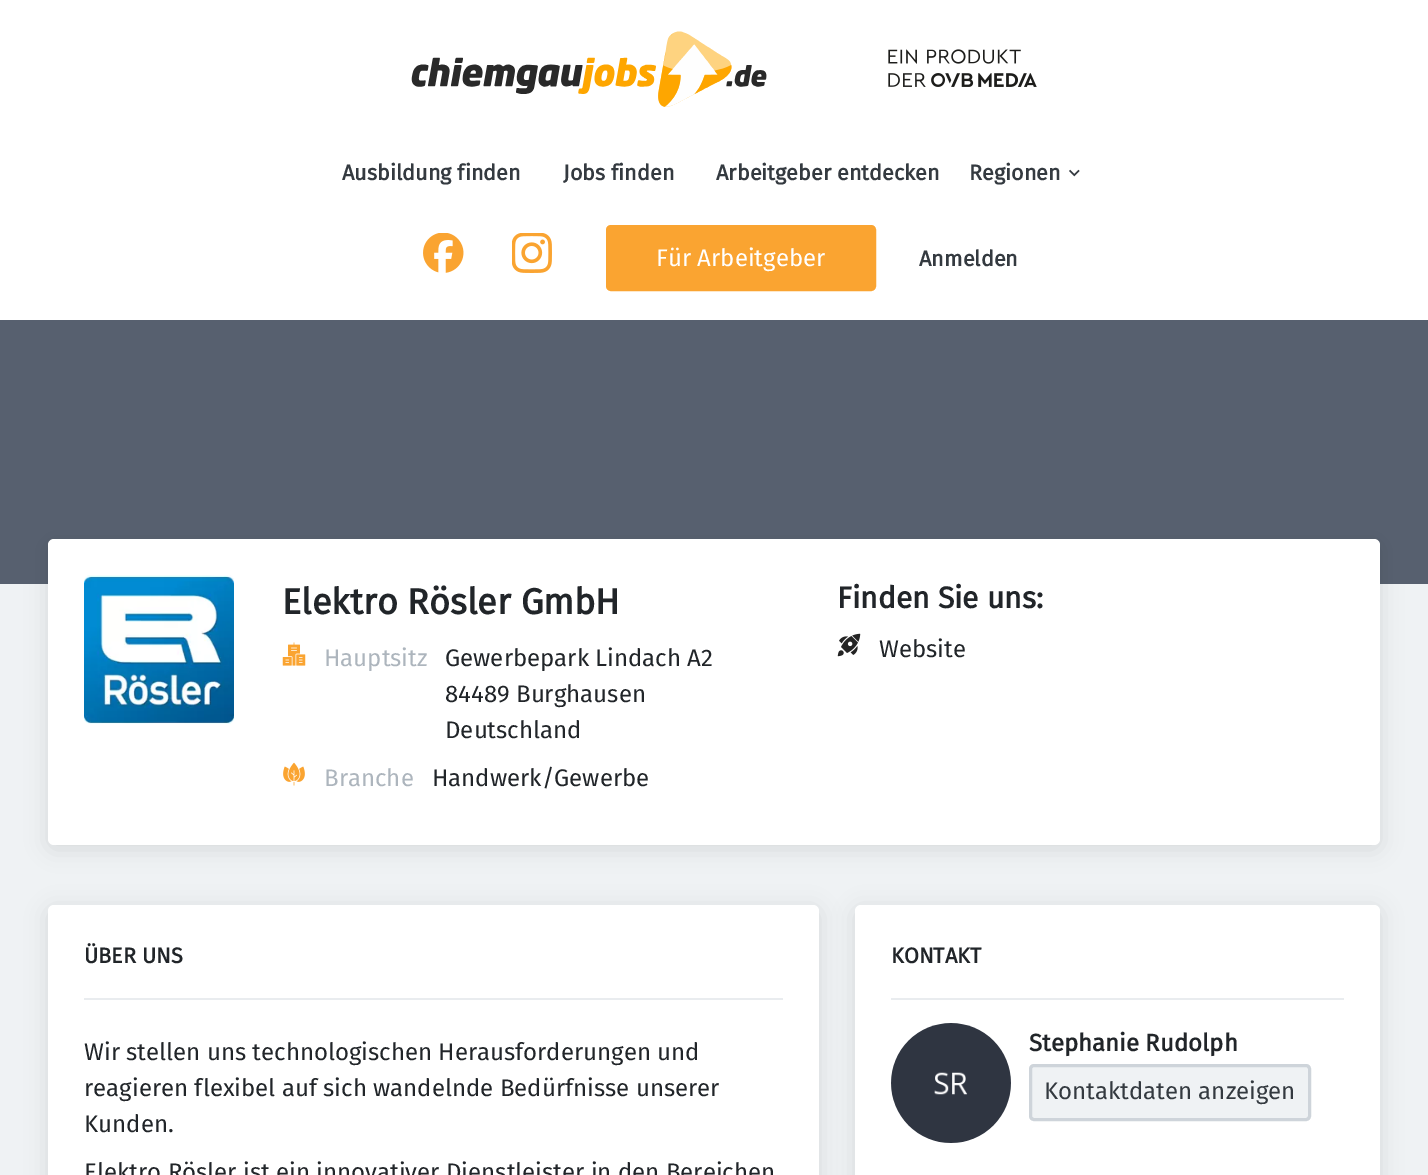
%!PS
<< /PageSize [1428 1175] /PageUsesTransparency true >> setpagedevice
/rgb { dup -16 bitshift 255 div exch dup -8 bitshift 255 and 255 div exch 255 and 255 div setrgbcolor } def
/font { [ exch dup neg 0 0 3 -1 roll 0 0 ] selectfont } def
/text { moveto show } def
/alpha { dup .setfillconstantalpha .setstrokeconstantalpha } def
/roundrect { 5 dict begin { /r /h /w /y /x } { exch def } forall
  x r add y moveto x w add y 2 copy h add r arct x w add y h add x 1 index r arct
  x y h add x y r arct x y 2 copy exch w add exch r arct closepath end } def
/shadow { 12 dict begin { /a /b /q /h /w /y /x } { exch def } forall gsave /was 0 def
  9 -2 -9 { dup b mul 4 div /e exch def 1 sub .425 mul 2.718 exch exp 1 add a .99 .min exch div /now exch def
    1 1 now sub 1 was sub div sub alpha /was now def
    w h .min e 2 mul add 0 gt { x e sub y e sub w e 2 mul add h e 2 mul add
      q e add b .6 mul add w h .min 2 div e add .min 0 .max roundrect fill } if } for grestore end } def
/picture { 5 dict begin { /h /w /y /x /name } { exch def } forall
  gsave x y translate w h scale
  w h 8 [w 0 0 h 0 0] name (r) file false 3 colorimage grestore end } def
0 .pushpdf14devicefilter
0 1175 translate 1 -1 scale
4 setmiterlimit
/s1 { /FiraSans-Bold 21.6 font 16#343A40 rgb } def
/s2 { /FiraSans-Regular 24 font 16#FFFFFF rgb } def
/s3 { /FiraSans-Bold 36 font 16#212529 rgb } def
/s4 { /FiraSans-Regular 24 font 16#ADB5BD rgb } def
/s5 { /FiraSans-Regular 24 font 16#212529 rgb } def
/s6 { /FiraSans-Bold 30 font 16#212529 rgb } def
/s7 { /FiraSans-Bold 21.6 font 16#212529 rgb } def
/s8 { /FiraSans-Bold 24 font 16#212529 rgb } def
/s9 { /FiraSans-Regular 24 font 16#343A40 rgb } def
16#EFF2F4 rgb
0 0 1428 1175 rectfill
16#FFFFFF rgb
0 0 1428 320 rectfill
(pic1.raw) 411 31 356 76 picture
(pic2.raw) 888 49 149 38 picture
s1
(Ausbildung finden) 342 180 text
(Jobs finden) 563 180 text
(Arbeitgeber entdecken) 716 180 text
(Regionen) 969 180 text
(pic3.raw) 1069 169 11 8 picture
(pic4.raw) 423 233 41 40 picture
(pic5.raw) 512 233 40 40 picture
16#FAA431 rgb
607.5 226.5 267 63 3.5 roundrect gsave fill grestore
3 setlinewidth
stroke
s2
(Für Arbeitgeber) 656 266 text
s1
(Anmelden) 919 266 text
16#57606F rgb
0 320 1428 264 rectfill
16#000000 rgb
48 543 1332 306 6 11 0.1 shadow
16#FFFFFF rgb
48 539 1332 306 6 roundrect fill
(pic6.raw) 84 575 150 149 picture
s3
(Elektro Rösler GmbH) 282 614 text
(pic7.raw) 282 642 24 24 picture
s4
(Hauptsitz) 324 666 text
s5
(Gewerbepark Lindach A2) 445 666 text
(84489 Burghausen) 445 702 text
(Deutschland) 445 738 text
(pic8.raw) 283 762 22 24 picture
s4
(Branche) 324 786 text
s5
(Handwerk/Gewerbe) 432 786 text
s6
(Finden Sie uns:) 837 608 text
(pic9.raw) 837 633 24 24 picture
s5
(Website) 879 657 text
16#000000 rgb
48 909 771 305 6 11 0.1 shadow
16#FFFFFF rgb
48 905 771 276 6 roundrect fill
16#E9ECEF rgb
84 998 699 2 rectfill
s7
(ÜBER UNS) 84 963 text
s5
(Wir stellen uns technologischen Herausforderungen und) 84 1060 text
(reagieren flexibel auf sich wandelnde Bedürfnisse unserer) 84 1096 text
(Kunden.) 84 1132 text
(Elektro Rösler ist ein innovativer Dienstleister in den Bereichen) 84 1180 text
16#000000 rgb
855 909 525 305 6 11 0.1 shadow
16#FFFFFF rgb
855 905 525 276 6 roundrect fill
16#E9ECEF rgb
891 998 453 2 rectfill
s7
(KONTAKT) 891 963 text
(pic10.raw) 891 1023 120 120 picture
s8
(Stephanie Rudolph) 1029 1051 text
16#EFF2F4 rgb
1030.5 1065.5 279 54 3.5 roundrect gsave fill grestore
16#CED4DA rgb
stroke
s9
(Kontaktdaten anzeigen) 1044 1099 text
.poppdf14devicefilter showpage
